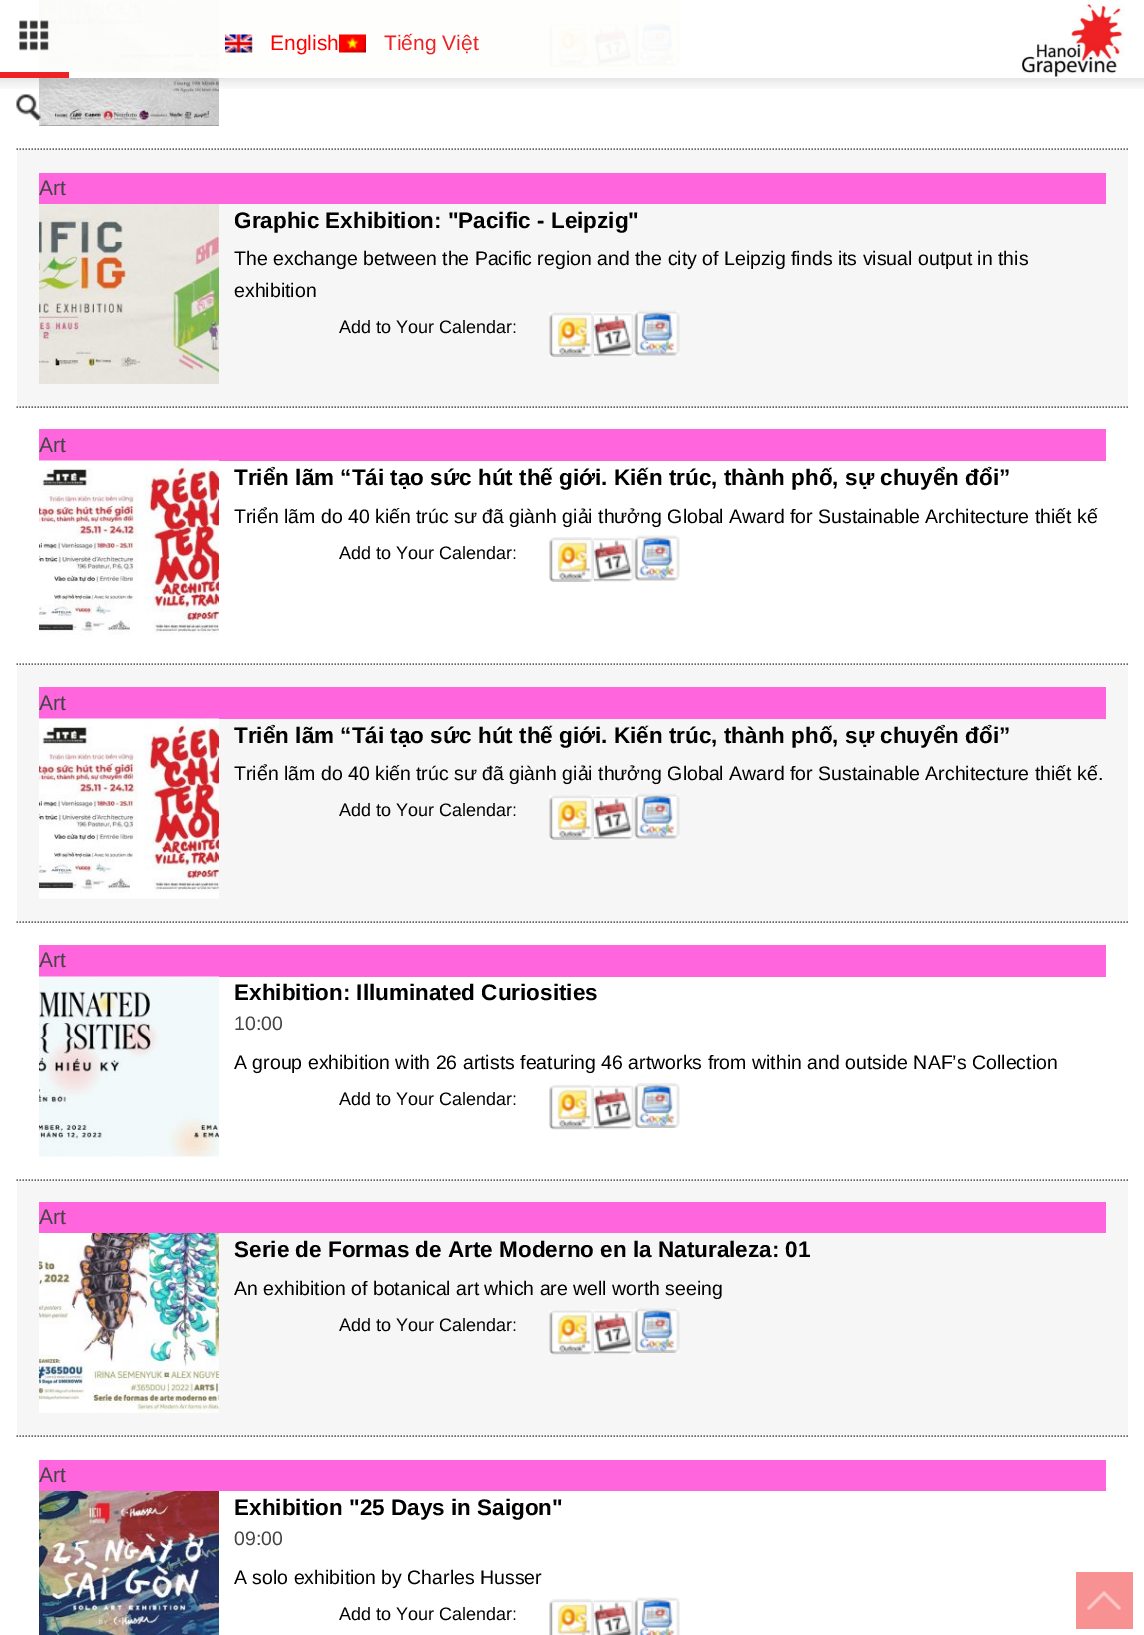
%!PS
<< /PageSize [1144 1635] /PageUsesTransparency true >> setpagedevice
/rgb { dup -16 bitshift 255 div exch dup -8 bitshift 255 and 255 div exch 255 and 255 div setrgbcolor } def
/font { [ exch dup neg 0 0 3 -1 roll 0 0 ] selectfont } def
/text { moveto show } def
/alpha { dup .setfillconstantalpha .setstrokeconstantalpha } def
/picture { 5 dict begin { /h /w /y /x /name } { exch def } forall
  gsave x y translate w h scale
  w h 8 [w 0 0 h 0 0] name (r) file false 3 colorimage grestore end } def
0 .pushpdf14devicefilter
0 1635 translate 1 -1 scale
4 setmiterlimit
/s1 { /LiberationSans-Regular 21 font 16#FF0000 rgb } def
/s2 { /LiberationSans-Regular 21 font 16#EE2225 rgb } def
/s3 { /LiberationSans-Regular 21 font 16#444444 rgb } def
/s4 { /LiberationSans-Bold 22.5 font 16#000000 rgb } def
/s5 { /LiberationSans-Regular 19.5 font 16#000000 rgb } def
/s6 { /LiberationSans-Regular 18 font 16#000000 rgb } def
/s7 { /LiberationSans-Regular 19.5 font 16#444444 rgb } def
16#FFFFFF rgb
0 0 1144 1635 rectfill
(pic7.raw) 39 0 180 126 picture
(pic10.raw) 634 21 46 45 picture
(pic8.raw) 589 22 46 46 picture
(pic9.raw) 549 22 45 46 picture
0.95 alpha
16#FEFEFD rgb
39 0 641 72 rectfill
1 alpha
16#FFFFFF rgb
69 72 150 6 rectfill
16#EE2225 rgb
0 72 69 6 rectfill
(pic1.raw) 19 20 30 31 picture
(pic2.raw) 225 34 28 19 picture
s1
(English) 270 50 text
(pic3.raw) 339 34 27 19 picture
s2
(Tiếng Việt) 384 50 text
(pic4.raw) 1014 4 115 73 picture
(pic5.raw) 16 94 25 27 picture
(pic6.raw) 0 78 1144 11 picture
16#666666 rgb
1.5 setlinewidth
[1.5 1.5] 0 setdash
16.5 149 moveto 1128 149 lineto stroke
16#F6F6F6 rgb
17 150 1111 258 rectfill
16#666666 rgb
16.5 407 moveto 1128 407 lineto stroke
16#FF66DD rgb
39 173 1067 31 rectfill
s3
(Art) 39 195 text
(pic11.raw) 39 204 180 180 picture
s4
(Graphic Exhibition: "Pacific - Leipzig") 234 228 text
s5
(The exchange between the Pacific region and the city of Leipzig finds its visual output in this) 234 265 text
(exhibition) 234 297 text
(pic14.raw) 634 310 46 46 picture
(pic12.raw) 594 312 41 45 picture
s6
(Add to Your Calendar:) 339 333 text
(pic13.raw) 549 312 45 45 picture
16#666666 rgb
16.5 664 moveto 1128 664 lineto stroke
16#FF66DD rgb
39 429 1067 32 rectfill
s3
(Art) 39 452 text
(pic15.raw) 39 460 180 175 picture
s4
(Triển lãm “Tái tạo sức hút thế giới. Kiến trúc, thành phố, sự chuyển đổi”) 234 485 text
s5
(Triển lãm do 40 kiến trúc sư đã giành giải thưởng Global Award for Sustainable Architecture thiết kế) 234 523 text
(pic17.raw) 634 535 46 46 picture
(pic16.raw) 594 537 41 45 picture
s6
(Add to Your Calendar:) 339 559 text
(pic13.raw) 549 537 45 45 picture
16#F6F6F6 rgb
17 665 1111 258 rectfill
16#666666 rgb
16.5 922 moveto 1128 922 lineto stroke
16#FF66DD rgb
39 687 1067 32 rectfill
s3
(Art) 39 710 text
(pic18.raw) 39 718 180 181 picture
s4
(Triển lãm “Tái tạo sức hút thế giới. Kiến trúc, thành phố, sự chuyển đổi”) 234 743 text
s5
(Triển lãm do 40 kiến trúc sư đã giành giải thưởng Global Award for Sustainable Architecture thiết kế.) 234 780 text
(pic14.raw) 634 793 46 46 picture
(pic12.raw) 594 795 41 45 picture
s6
(Add to Your Calendar:) 339 816 text
(pic13.raw) 549 795 45 45 picture
16#666666 rgb
16.5 1180 moveto 1128 1180 lineto stroke
16#FF66DD rgb
39 945 1067 32 rectfill
s3
(Art) 39 967 text
(pic19.raw) 39 976 180 181 picture
s4
(Exhibition: Illuminated Curiosities) 234 1000 text
s7
(10:00) 234 1030 text
s5
(A group exhibition with 26 artists featuring 46 artworks from within and outside NAF’s Collection) 234 1069 text
(pic10.raw) 634 1083 46 45 picture
(pic8.raw) 589 1084 46 46 picture
s6
(Add to Your Calendar:) 339 1105 text
(pic9.raw) 549 1084 45 46 picture
16#F6F6F6 rgb
17 1181 1111 256 rectfill
16#666666 rgb
16.5 1436 moveto 1128 1436 lineto stroke
16#FF66DD rgb
39 1202 1067 31 rectfill
s3
(Art) 39 1224 text
(pic20.raw) 39 1233 180 180 picture
s4
(Serie de Formas de Arte Moderno en la Naturaleza: 01) 234 1257 text
s5
(An exhibition of botanical art which are well worth seeing) 234 1295 text
(pic23.raw) 634 1308 46 45 picture
(pic21.raw) 589 1309 46 46 picture
s6
(Add to Your Calendar:) 339 1331 text
(pic22.raw) 549 1310 45 45 picture
16#FF66DD rgb
39 1460 1067 31 rectfill
s3
(Art) 39 1482 text
(pic24.raw) 39 1491 180 144 picture
s4
(Exhibition "25 Days in Saigon") 234 1515 text
s7
(09:00) 234 1545 text
s5
(A solo exhibition by Charles Husser) 234 1584 text
(pic27.raw) 634 1597 46 38 picture
(pic25.raw) 594 1599 41 36 picture
s6
(Add to Your Calendar:) 339 1620 text
(pic26.raw) 549 1599 45 36 picture
16#F79192 rgb
1076 1572 57 57 rectfill
(pic28.raw) 1087 1591 34 19 picture
.poppdf14devicefilter showpage
